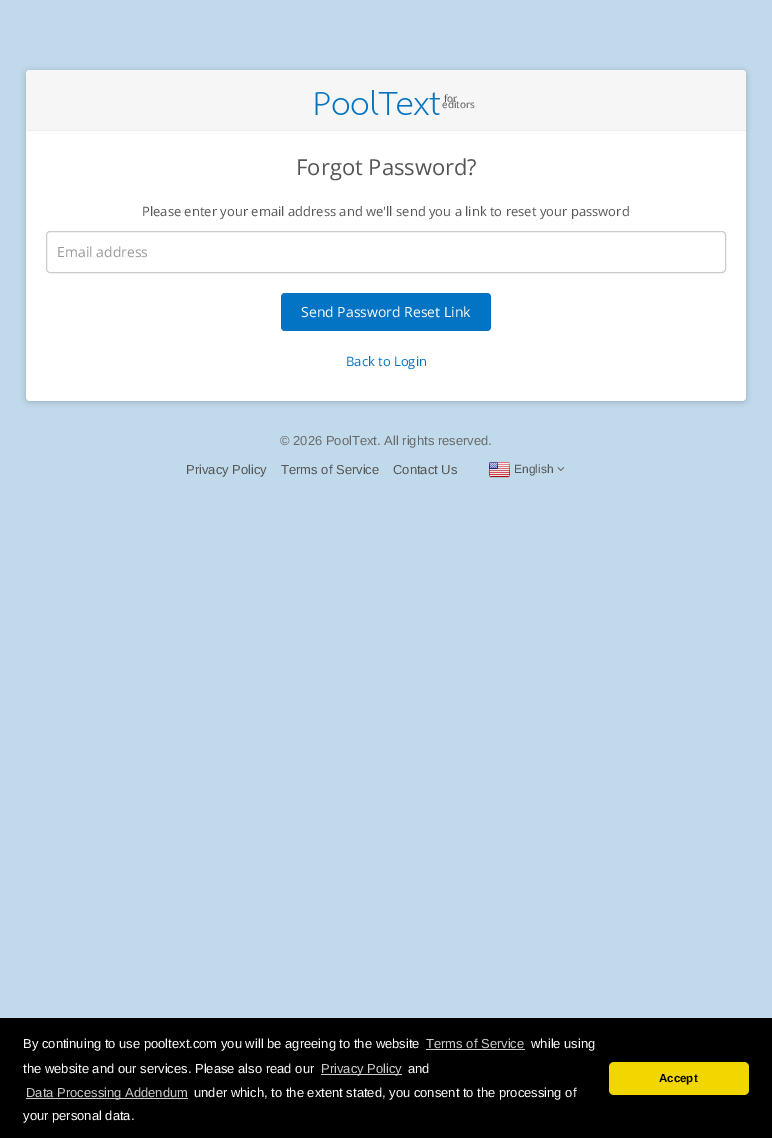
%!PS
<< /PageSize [772 1138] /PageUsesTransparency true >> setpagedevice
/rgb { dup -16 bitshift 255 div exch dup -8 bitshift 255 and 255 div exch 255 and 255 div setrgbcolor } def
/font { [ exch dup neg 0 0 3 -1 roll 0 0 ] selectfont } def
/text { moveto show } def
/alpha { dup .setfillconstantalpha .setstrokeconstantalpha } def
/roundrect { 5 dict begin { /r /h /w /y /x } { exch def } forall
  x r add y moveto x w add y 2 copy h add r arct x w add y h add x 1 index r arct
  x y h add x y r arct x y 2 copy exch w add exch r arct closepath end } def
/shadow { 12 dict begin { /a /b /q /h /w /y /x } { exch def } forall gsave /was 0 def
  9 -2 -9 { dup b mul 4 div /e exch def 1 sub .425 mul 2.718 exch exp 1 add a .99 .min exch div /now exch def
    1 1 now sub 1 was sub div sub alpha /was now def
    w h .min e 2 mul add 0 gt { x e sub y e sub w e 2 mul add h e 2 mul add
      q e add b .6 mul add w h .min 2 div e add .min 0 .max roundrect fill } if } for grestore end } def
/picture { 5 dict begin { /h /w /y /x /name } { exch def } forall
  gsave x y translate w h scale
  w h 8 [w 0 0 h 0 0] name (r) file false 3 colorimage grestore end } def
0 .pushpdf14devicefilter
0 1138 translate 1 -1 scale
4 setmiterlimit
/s1 { /OpenSans-Regular 10 font 16#555555 rgb } def
/s2 { /OpenSans-Regular 22 font 16#555555 rgb } def
/s3 { /OpenSans-Regular 13 font 16#555555 rgb } def
/s4 { /OpenSans-Regular 14 font 16#999999 rgb } def
/s5 { /OpenSans-Regular 14 font 16#FFFFFF rgb } def
/s6 { /OpenSans-Regular 13 font 16#0373C3 rgb } def
/s7 { /LiberationSans-Regular 13 font 16#696969 rgb } def
/s8 { /LiberationSans-Regular 13 font 16#555555 rgb } def
/s9 { /LiberationSans-Regular 12 font 16#555555 rgb } def
/s10 { /LiberationSans-Regular 13 font 16#FFFFFF rgb } def
/s11 { /LiberationSans-Regular 13 font 16#CCCCCC rgb } def
/s12 { /LiberationSans-Bold 11.5 font 16#000000 rgb } def
16#C0D9EB rgb
0 0 772 1138 rectfill
16#000000 rgb
26 71 720 331 4 3 0.2 shadow
16#FFFFFF rgb
26 70 720 331 4 roundrect fill
16#F6F6F6 rgb
30 70 moveto 742 70 lineto 744 70 746 72 746 74 curveto 746 131 lineto 26 131 lineto 26 74 lineto 26 72 28 70 30 70 curveto closepath fill
16#EEEEEE rgb
26 130 720 1 rectfill
(pic1.raw) 315 90 125 25 picture
s1
(for) 444 102 text
(editors) 442 108 text
s2
(Forgot Password?) 296 175 text
s3
(Please enter your email address and we'll send you a link to reset your password) 142 216 text
16#CCCCCC rgb
46.5 231.5 679 41 3.5 roundrect stroke
s4
(Email address) 57 257 text
16#0373C3 rgb
281 293 210 38 4 roundrect fill
s5
(Send Password Reset Link) 301 317 text
s6
(Back to Login) 346 366 text
s7
(© 2026 PoolText. All rights reserved.) 280 445 text
s8
(Privacy Policy) 186 474 text
(Terms of Service) 281 474 text
(Contact Us) 393 474 text
(pic2.raw) 489 462 21 16 picture
s9
(English) 514 473 text
(pic3.raw) 557 467 8 4 picture
16#000000 rgb
0 1018 772 120 rectfill
s10
(By continuing to use pooltext.com you will be agreeing to the website) 23 1048 text
s11
(Terms of Service) 426 1048 text
426 1049 99 1 rectfill
s10
(while using) 531 1048 text
(the website and our services. Please also read our) 23 1073 text
16#CCCCCC rgb
321 1074 81 1 rectfill
(Privacy Policy) 321 1073 text
s10
(and) 408 1073 text
16#CCCCCC rgb
26 1098 162 1 rectfill
(Data Processing Addendum) 26 1097 text
s10
(under which, to the extent stated, you consent to the processing of) 194 1097 text
(your personal data.) 23 1120 text
16#F1D600 rgb
609 1062 140 33 5 roundrect fill
s12
(Accept) 659 1082 text
.poppdf14devicefilter showpage
